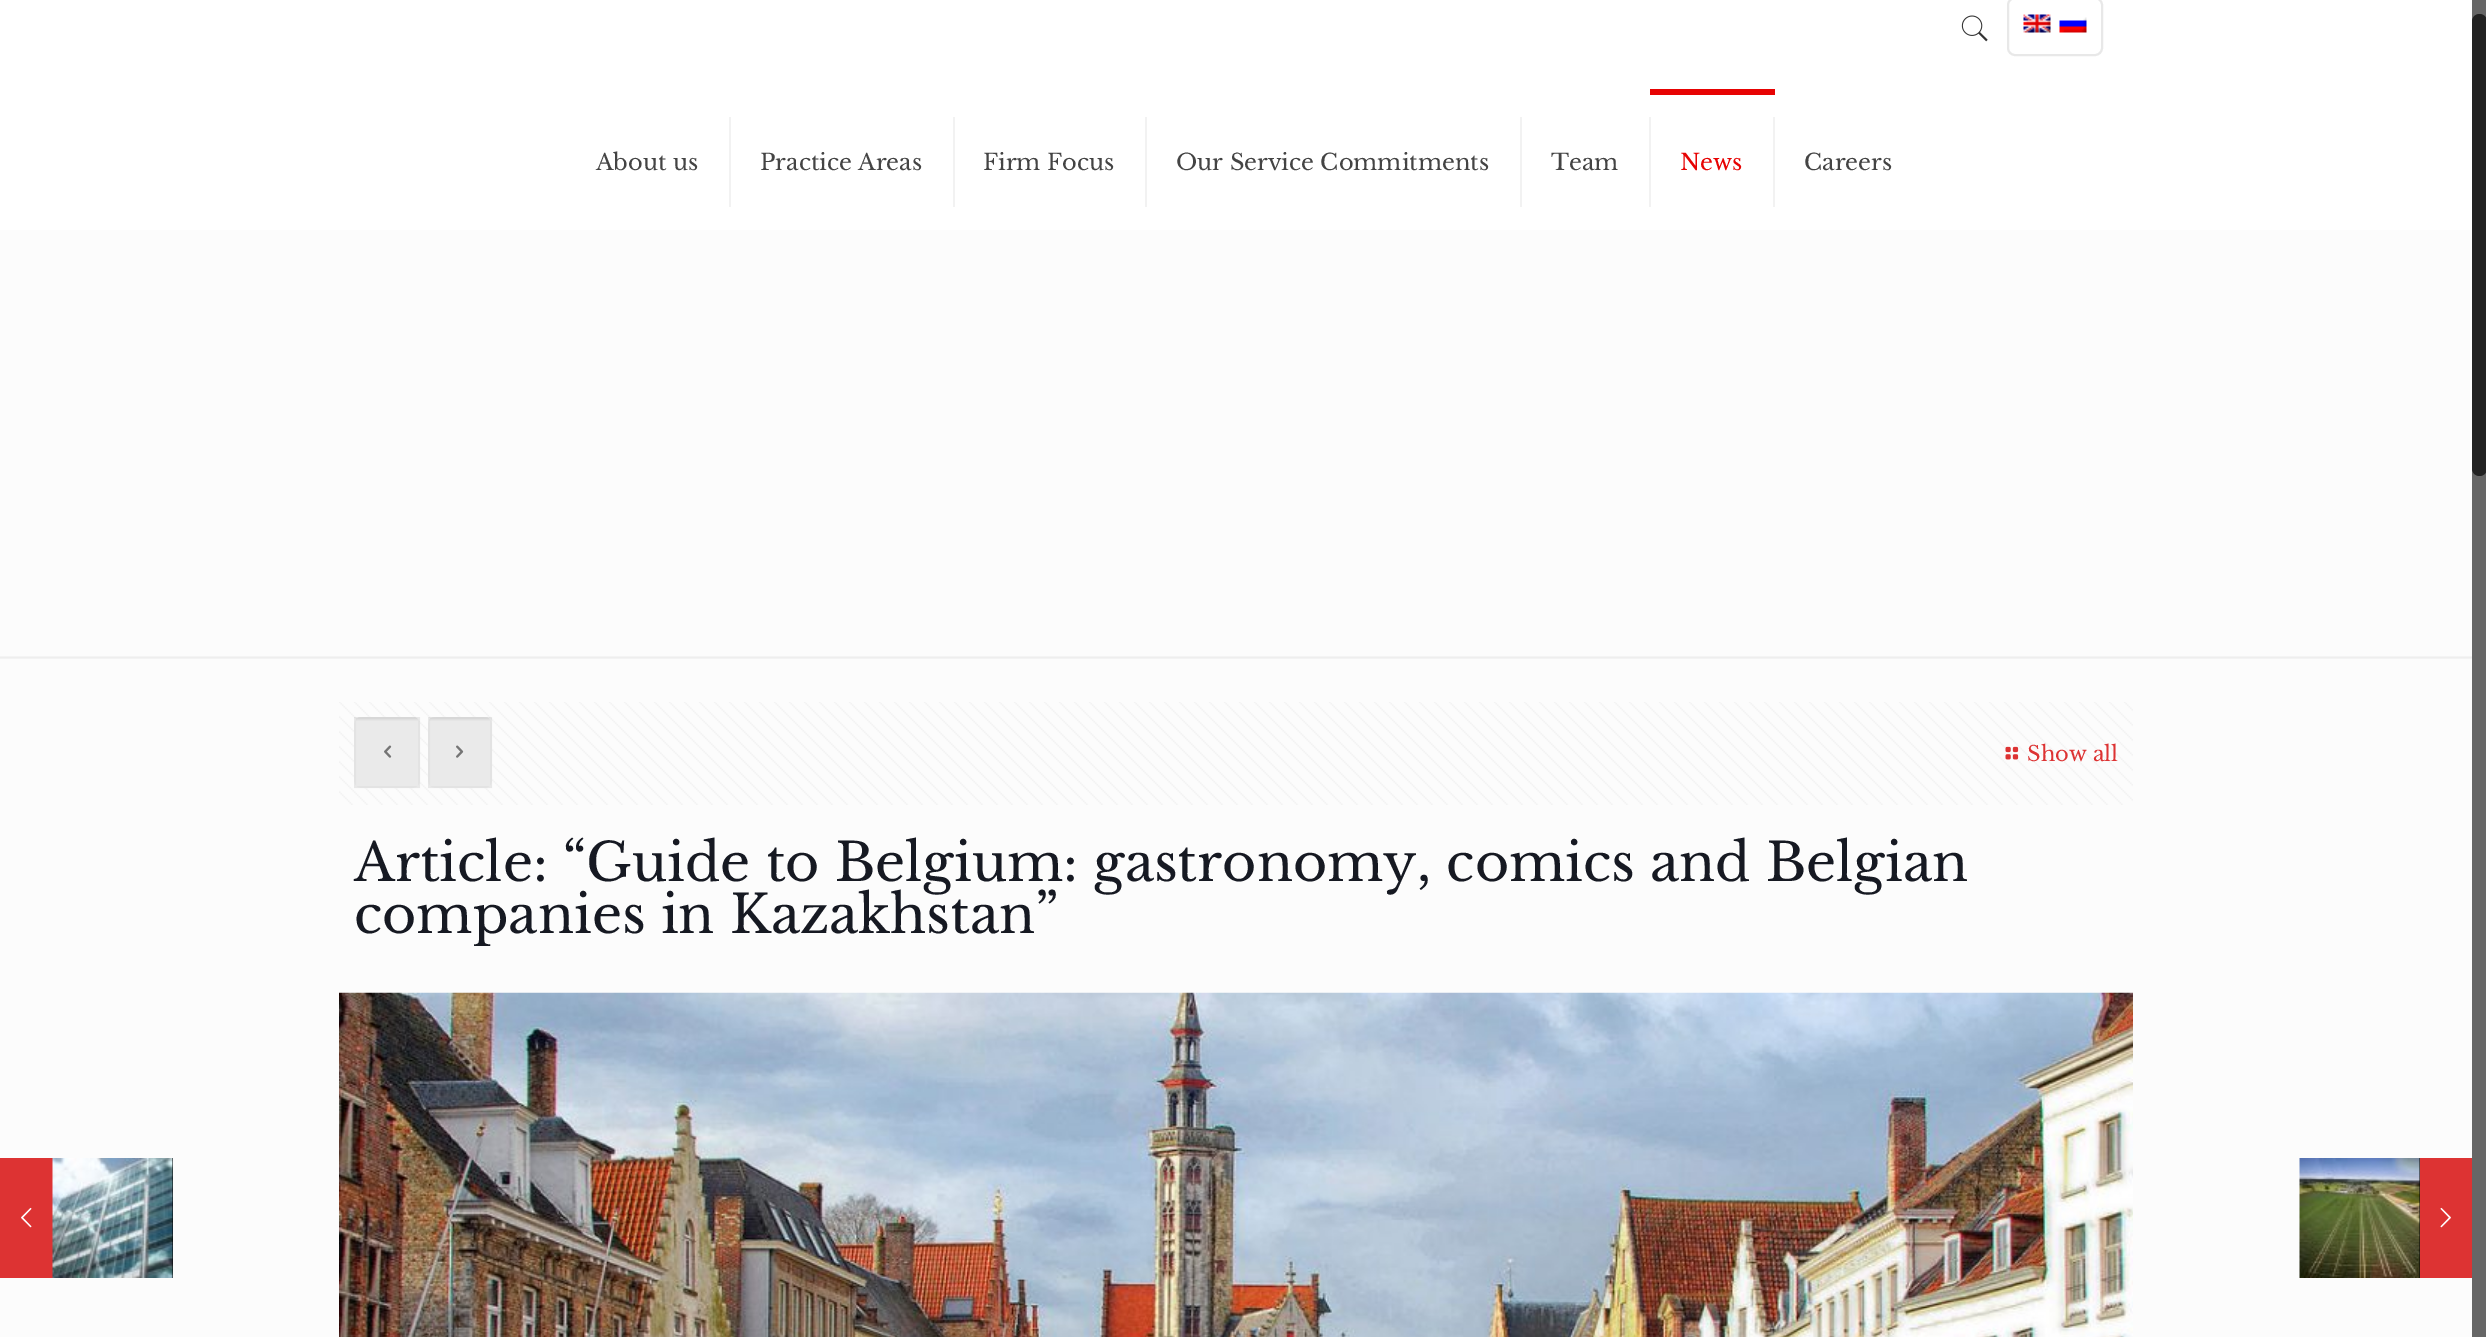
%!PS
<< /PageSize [2486 1337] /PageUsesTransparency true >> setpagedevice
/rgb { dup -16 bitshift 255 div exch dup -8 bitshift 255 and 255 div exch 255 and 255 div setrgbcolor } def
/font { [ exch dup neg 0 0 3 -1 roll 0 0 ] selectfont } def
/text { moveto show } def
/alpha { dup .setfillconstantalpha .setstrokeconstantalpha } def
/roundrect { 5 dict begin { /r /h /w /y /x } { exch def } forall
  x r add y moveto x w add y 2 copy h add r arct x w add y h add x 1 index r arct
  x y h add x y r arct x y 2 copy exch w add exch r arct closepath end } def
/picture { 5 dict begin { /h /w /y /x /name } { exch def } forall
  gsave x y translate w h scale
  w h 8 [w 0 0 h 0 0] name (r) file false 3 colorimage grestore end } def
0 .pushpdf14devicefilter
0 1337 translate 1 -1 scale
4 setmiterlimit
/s1 { /LibreBaskerville-Regular 22.5 font 16#444444 rgb } def
/s2 { /LibreBaskerville-Regular 22.5 font 16#E70303 rgb } def
/s3 { /LibreBaskerville-Regular 21 font 16#DD3333 rgb } def
/s4 { /LibreBaskerville-Regular 52.5 font 16#161922 rgb } def
16#FCFCFC rgb
0 0 2486 1337 rectfill
16#FFFFFF rgb
0 0 2472 230 rectfill
(pic1.raw) 1961 15 27 27 picture
16#E8E8E8 rgb
2 setlinewidth
2008 -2 94 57 7 roundrect stroke
(pic2.raw) 2023 14 28 19 picture
(pic3.raw) 2059 17 28 16 picture
16#F2F2F2 rgb
729 117 2 90 rectfill
s1
(About us) 596 170 text
16#F2F2F2 rgb
953 117 2 90 rectfill
s1
(Practice Areas) 760 170 text
16#F2F2F2 rgb
1145 117 2 90 rectfill
s1
(Firm Focus) 983 170 text
16#F2F2F2 rgb
1520 117 2 90 rectfill
s1
(Our Service Commitments) 1176 170 text
16#F2F2F2 rgb
1649 117 2 90 rectfill
s1
(Team) 1551 170 text
16#E70303 rgb
1650 89 125 6 rectfill
16#F2F2F2 rgb
1773 117 2 90 rectfill
s2
(News) 1680 170 text
s1
(Careers) 1804 170 text
(pic4.raw) 0 656 2472 3 picture
(pic5.raw) 339 702 1794 103 picture
16#F7F7F7 rgb
354 717 66 71 8 roundrect fill
(pic6.raw) 356 717 62 4 picture
0.03 alpha
16#000000 rgb
355 718 64 69 rectstroke
0.05 alpha
354 717 66 71 rectfill
1 alpha
(pic7.raw) 384 745 8 13 picture
16#F7F7F7 rgb
428 717 64 71 8 roundrect fill
(pic8.raw) 429 717 61 4 picture
0.03 alpha
16#000000 rgb
429 718 62 69 rectstroke
0.05 alpha
428 717 64 71 rectfill
1 alpha
(pic9.raw) 456 745 8 13 picture
(pic10.raw) 2005 746 14 14 picture
s3
(Show all) 2027 761 text
s4
(Article: “Guide to Belgium: gastronomy, comics and Belgian) 354 881 text
(companies in Kazakhstan”) 354 933 text
(pic11.raw) 339 992 1794 345 picture
16#666666 rgb
2472 0 14 1337 rectfill
16#222222 rgb
2472 14 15 462 7.5 roundrect fill
16#DD3333 rgb
0 1158 53 120 rectfill
(pic12.raw) 21 1207 11 21 picture
16#000000 rgb
172 1158 1 120 rectfill
(pic13.raw) 52 1158 121 120 picture
2419 1158 1 120 rectfill
(pic14.raw) 2299 1158 121 120 picture
16#DD3333 rgb
2420 1158 52 120 rectfill
(pic15.raw) 2440 1207 11 21 picture
.poppdf14devicefilter showpage
